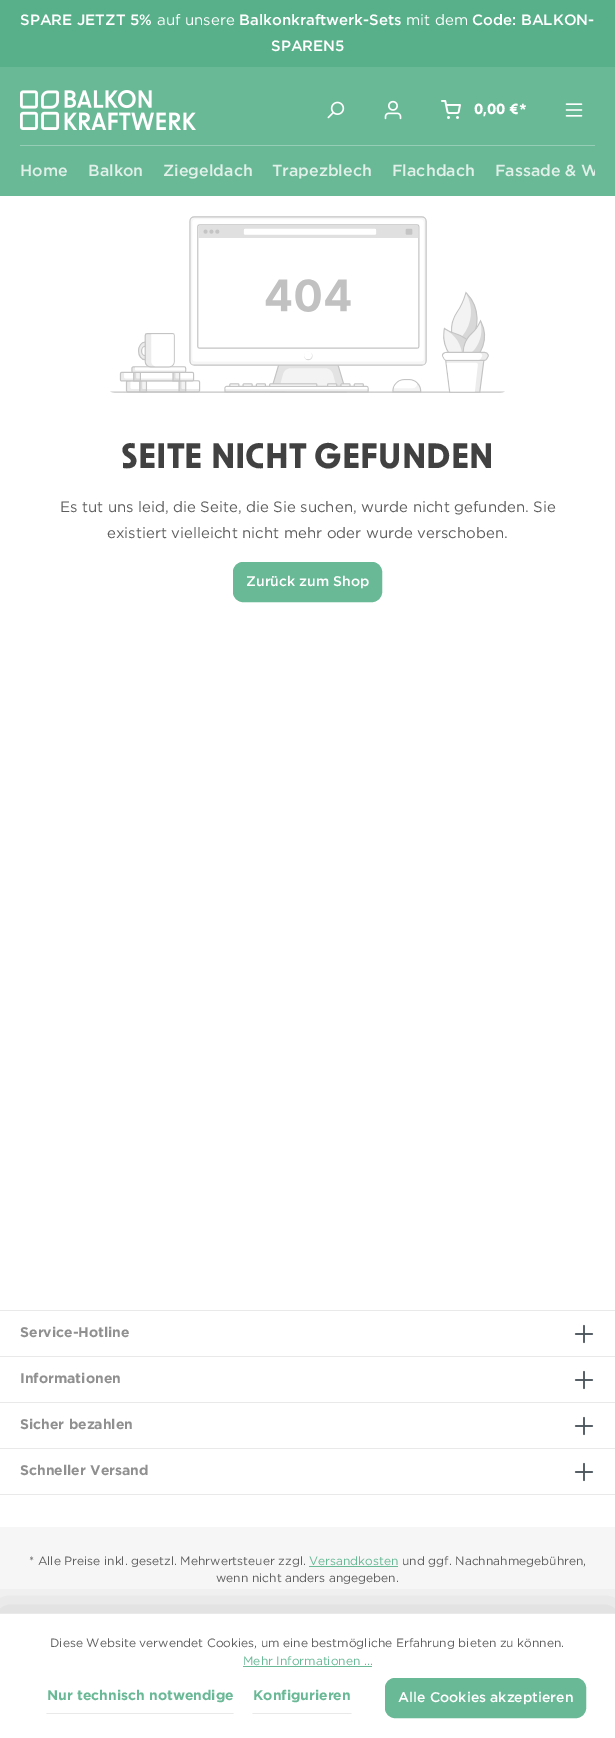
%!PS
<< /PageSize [615 1738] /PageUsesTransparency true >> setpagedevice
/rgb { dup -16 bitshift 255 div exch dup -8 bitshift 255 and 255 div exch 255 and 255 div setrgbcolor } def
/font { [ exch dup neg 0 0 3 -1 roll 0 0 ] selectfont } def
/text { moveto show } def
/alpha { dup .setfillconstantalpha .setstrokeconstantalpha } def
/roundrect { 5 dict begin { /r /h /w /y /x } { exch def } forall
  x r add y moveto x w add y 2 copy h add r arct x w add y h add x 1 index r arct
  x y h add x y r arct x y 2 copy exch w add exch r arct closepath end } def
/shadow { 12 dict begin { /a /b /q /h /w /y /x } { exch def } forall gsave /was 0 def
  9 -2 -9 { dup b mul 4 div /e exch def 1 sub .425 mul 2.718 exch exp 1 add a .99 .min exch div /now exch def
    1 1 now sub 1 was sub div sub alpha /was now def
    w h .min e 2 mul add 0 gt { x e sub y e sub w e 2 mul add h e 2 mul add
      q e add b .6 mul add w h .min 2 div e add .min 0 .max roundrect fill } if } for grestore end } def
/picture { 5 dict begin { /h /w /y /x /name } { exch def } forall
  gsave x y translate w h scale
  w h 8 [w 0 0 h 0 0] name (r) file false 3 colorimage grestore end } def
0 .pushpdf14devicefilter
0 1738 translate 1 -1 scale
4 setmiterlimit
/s1 { /Gotham-Medium 15 font 16#FFFFFF rgb } def
/s2 { /Gotham-Regular 15 font 16#FFFFFF rgb } def
/s3 { /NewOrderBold-Bold 14 font 16#FFFFFF rgb } def
/s4 { /Gotham-Medium 16 font 16#E1F1EA rgb } def
/s5 { /NewOrderBold-Bold 33.5 font 16#414141 rgb } def
/s6 { /Gotham-Regular 15 font 16#5E5E5E rgb } def
/s7 { /Gotham-Medium 14 font 16#FFFFFF rgb } def
/s8 { /Gotham-Bold 14 font 16#909090 rgb } def
/s9 { /Gotham-Regular 12 font 16#5E5E5E rgb } def
/s10 { /Gotham-Regular 12 font 16#69B896 rgb } def
/s11 { /Gotham-Bold 14 font 16#69B896 rgb } def
16#FFFFFF rgb
0 0 615 1738 rectfill
16#69B896 rgb
0 67 615 129 rectfill
16#58B08A rgb
0 0 615 67 rectfill
s1
(SPARE JETZT 5%) 20 25 text
s2
(auf unsere) 157 25 text
s1
(Balkonkraftwerk-Sets) 239 25 text
s2
(mit dem) 406 25 text
s1
(Code: BALKON-) 472 25 text
(SPAREN5) 271 51 text
16#96CDB6 rgb
20 145 575 1 rectfill
(pic1.raw) 20 90 176 40 picture
(pic2.raw) 327 101 18 18 picture
(pic3.raw) 384 100 18 20 picture
(pic4.raw) 441 100 20 19 picture
s3
(0,00 €*) 474 114 text
(pic5.raw) 565 103 18 14 picture
s4
(Home) 20 176 text
(Balkon) 88 176 text
(Ziegeldach) 163 176 text
(Trapezblech) 272 176 text
(Flachdach) 392 176 text
gsave
20 151 575 45 rectclip
(Fassade & W) 495 176 text
grestore
(pic6.raw) 110 216 395 177 picture
s5
(SEITE NICHT GEFUNDEN) 121 468 text
s6
(Es tut uns leid, die Seite, die Sie suchen, wurde nicht gefunden. Sie) 60 512 text
(existiert vielleicht nicht mehr oder wurde verschoben.) 107 538 text
16#69B896 rgb
233.5 562.5 148 39 9.5 roundrect gsave fill grestore
stroke
s7
(Zurück zum Shop) 246 586 text
16#E9E9E9 rgb
0 1310 615 1 rectfill
0 1356 615 1 rectfill
s8
(Service-Hotline) 20 1337 text
(pic7.raw) 574 1324 20 20 picture
16#E9E9E9 rgb
0 1402 615 1 rectfill
s8
(Informationen) 20 1383 text
(pic7.raw) 574 1370 20 20 picture
16#E9E9E9 rgb
0 1448 615 1 rectfill
s8
(Sicher bezahlen) 20 1429 text
(pic7.raw) 574 1416 20 20 picture
16#E9E9E9 rgb
0 1494 615 1 rectfill
s8
(Schneller Versand) 20 1475 text
(pic7.raw) 574 1462 20 20 picture
16#F6F6F6 rgb
0 1527 615 86 rectfill
s9
(* Alle Preise inkl. gesetzl. Mehrwertsteuer zzgl.) 29 1565 text
s10
(Versandkosten) 309 1565 text
309 1566 89 1 rectfill
s9
(und ggf. Nachnahmegebühren,) 402 1565 text
(wenn nicht anders angegeben.) 216 1582 text
gsave
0 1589 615 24 rectclip
16#000000 rgb
0 1609 615 125 0 18 0.15 shadow
grestore
16#E9E9E9 rgb
0 1613 615 1 rectfill
s9
(Diese Website verwendet Cookies, um eine bestmögliche Erfahrung bieten zu können.) 50 1647 text
s10
(Mehr Informationen ...) 243 1665 text
243 1666 129 1 rectfill
16#E9E9E9 rgb
234 1714 moveto 46 1714 lineto 47 1713 lineto 233 1713 lineto closepath fill
s11
(Nur technisch notwendige) 47 1700 text
16#E9E9E9 rgb
352 1714 moveto 252 1714 lineto 253 1713 lineto 351 1713 lineto closepath fill
s11
(Konfigurieren) 253 1700 text
385.5 1678.5 200 39 9.5 roundrect gsave fill grestore
stroke
s7
(Alle Cookies akzeptieren) 398 1702 text
.poppdf14devicefilter showpage
